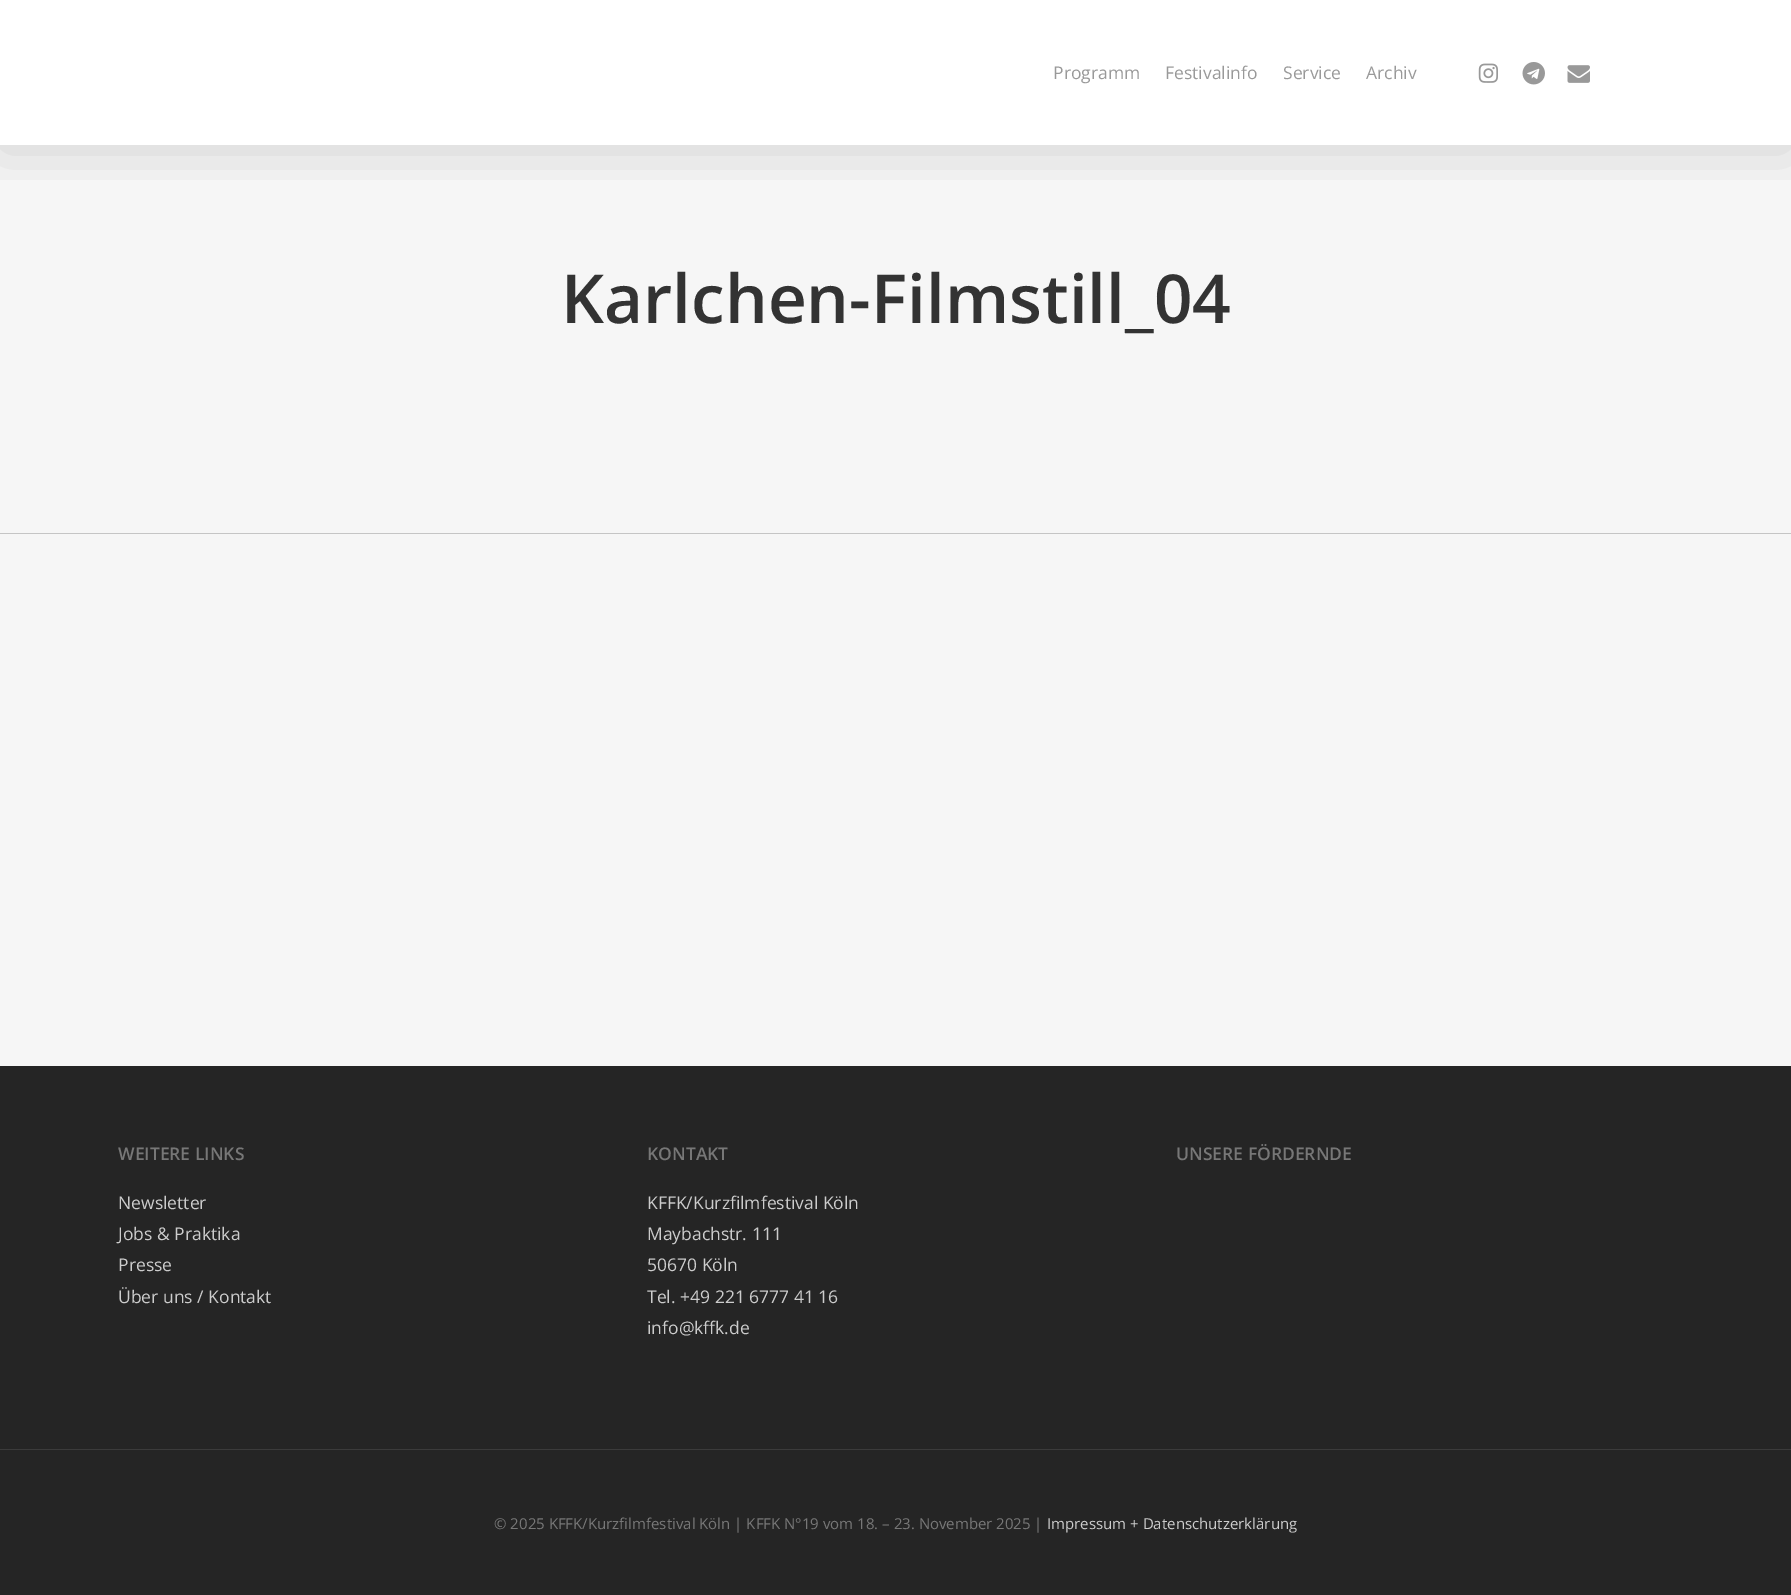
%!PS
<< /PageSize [1791 1595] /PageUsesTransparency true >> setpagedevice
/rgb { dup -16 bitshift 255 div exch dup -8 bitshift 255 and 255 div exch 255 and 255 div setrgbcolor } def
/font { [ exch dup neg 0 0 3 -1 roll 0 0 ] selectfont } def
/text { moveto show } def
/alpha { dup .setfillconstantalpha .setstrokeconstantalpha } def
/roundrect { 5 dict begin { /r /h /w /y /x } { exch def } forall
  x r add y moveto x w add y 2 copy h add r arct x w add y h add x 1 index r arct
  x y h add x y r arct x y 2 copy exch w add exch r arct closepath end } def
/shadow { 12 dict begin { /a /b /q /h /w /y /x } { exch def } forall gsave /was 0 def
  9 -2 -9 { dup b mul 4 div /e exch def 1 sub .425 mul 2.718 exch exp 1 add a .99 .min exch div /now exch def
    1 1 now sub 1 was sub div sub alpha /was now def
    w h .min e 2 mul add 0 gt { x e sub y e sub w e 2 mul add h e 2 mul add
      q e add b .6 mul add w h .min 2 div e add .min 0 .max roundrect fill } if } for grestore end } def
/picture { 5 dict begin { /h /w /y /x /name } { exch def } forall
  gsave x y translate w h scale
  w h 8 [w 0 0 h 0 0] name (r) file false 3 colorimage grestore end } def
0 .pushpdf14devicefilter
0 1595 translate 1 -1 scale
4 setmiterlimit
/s1 { /OpenSans-Regular 17.5 font 16#999999 rgb } def
/s2 { /OpenSans-SemiBold 67.5 font 16#333333 rgb } def
/s3 { /OpenSans-SemiBold 17.5 font 16#777777 rgb } def
/s4 { /OpenSans-Regular 17.5 font 16#CCCCCC rgb } def
/s5 { /OpenSans-Regular 15 font 16#777777 rgb } def
/s6 { /OpenSans-Regular 15 font 16#CCCCCC rgb } def
16#FFFFFF rgb
0 0 1791 1595 rectfill
16#F6F6F6 rgb
0 145 1791 921 rectfill
gsave
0 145 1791 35 rectclip
16#000000 rgb
0 4 1791 145 0 28 0.15 shadow
grestore
s1
(Programm) 1053 79 text
(Festivalinfo) 1165 79 text
(Service) 1283 79 text
(Archiv) 1366 79 text
(pic1.raw) 1478 63 20 20 picture
(pic2.raw) 1522 62 23 23 picture
(pic3.raw) 1567 65 23 18 picture
s2
(Karlchen-Filmstill_04) 561 323 text
16#C5C5C5 rgb
0 533 1791 1 rectfill
16#252525 rgb
0 1066 1791 529 rectfill
s3
(WEITERE LINKS) 118 1160 text
s4
(Newsletter) 118 1209 text
(Jobs & Praktika) 118 1240 text
(Presse) 118 1271 text
(Über uns / Kontakt) 118 1303 text
s3
(KONTAKT) 647 1160 text
s4
(KFFK/Kurzfilmfestival Köln) 647 1209 text
(Maybachstr. 111) 647 1240 text
(50670 Köln) 647 1271 text
(Tel. +49 221 6777 41 16) 647 1303 text
(info@kffk.de) 647 1334 text
s3
(UNSERE FÖRDERNDE) 1176 1160 text
16#3B3B3B rgb
0 1449 1791 1 rectfill
s5
(© 2025 KFFK/Kurzfilmfestival Köln | KFFK N°19 vom 18. – 23. November 2025 |) 494 1529 text
s6
(Impressum + Datenschutzerklärung) 1047 1529 text
.poppdf14devicefilter showpage
